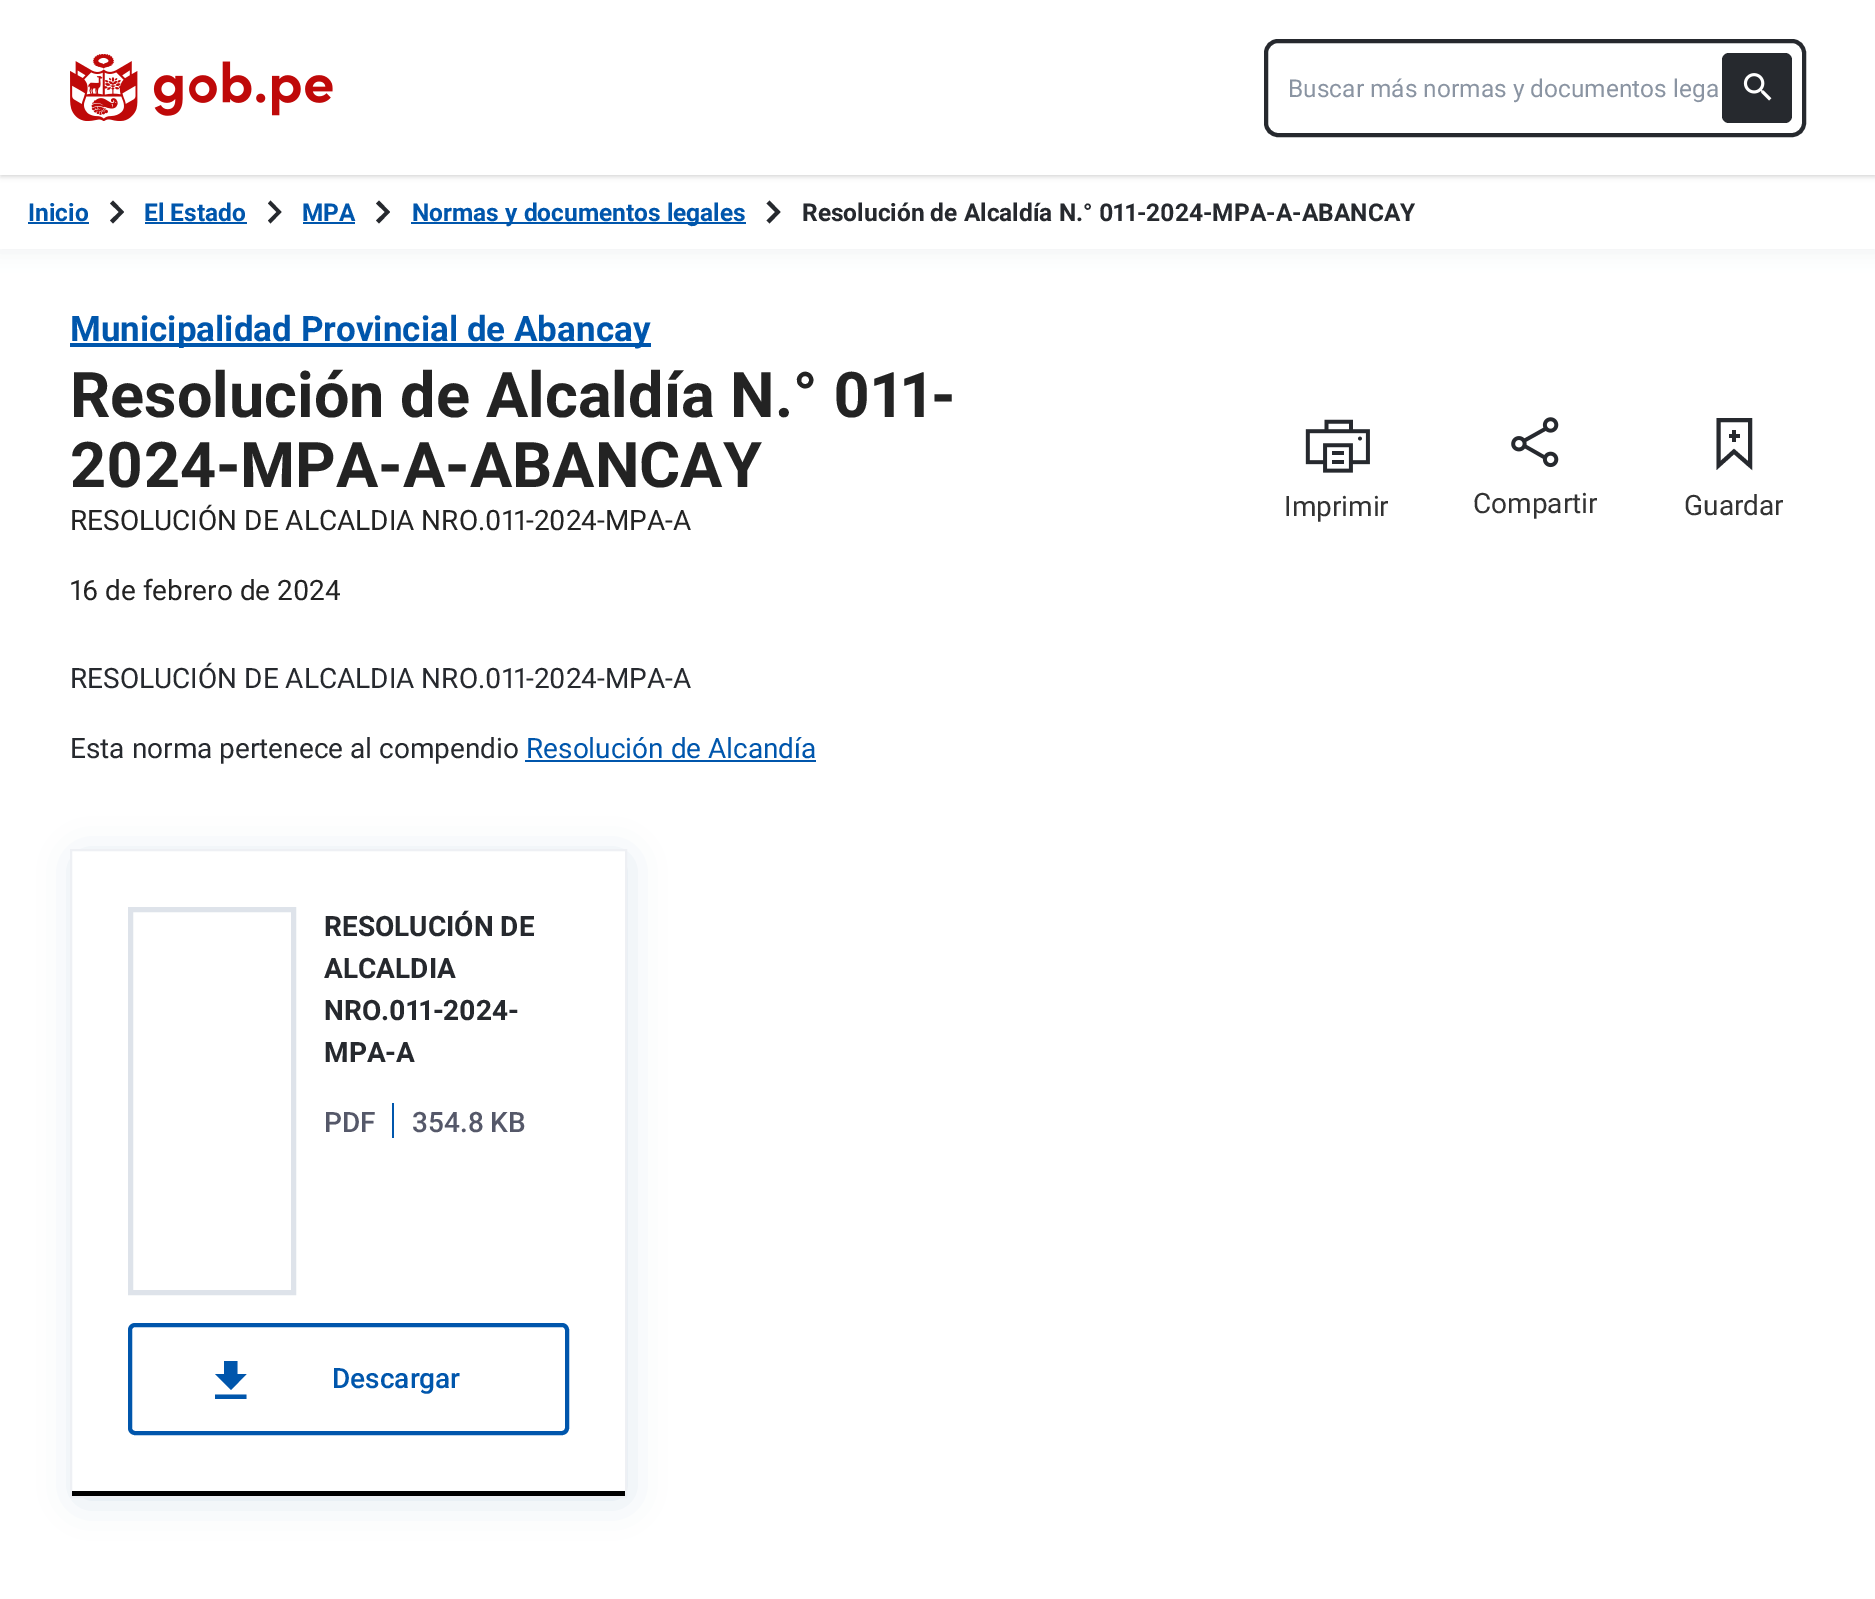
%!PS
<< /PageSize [1875 1599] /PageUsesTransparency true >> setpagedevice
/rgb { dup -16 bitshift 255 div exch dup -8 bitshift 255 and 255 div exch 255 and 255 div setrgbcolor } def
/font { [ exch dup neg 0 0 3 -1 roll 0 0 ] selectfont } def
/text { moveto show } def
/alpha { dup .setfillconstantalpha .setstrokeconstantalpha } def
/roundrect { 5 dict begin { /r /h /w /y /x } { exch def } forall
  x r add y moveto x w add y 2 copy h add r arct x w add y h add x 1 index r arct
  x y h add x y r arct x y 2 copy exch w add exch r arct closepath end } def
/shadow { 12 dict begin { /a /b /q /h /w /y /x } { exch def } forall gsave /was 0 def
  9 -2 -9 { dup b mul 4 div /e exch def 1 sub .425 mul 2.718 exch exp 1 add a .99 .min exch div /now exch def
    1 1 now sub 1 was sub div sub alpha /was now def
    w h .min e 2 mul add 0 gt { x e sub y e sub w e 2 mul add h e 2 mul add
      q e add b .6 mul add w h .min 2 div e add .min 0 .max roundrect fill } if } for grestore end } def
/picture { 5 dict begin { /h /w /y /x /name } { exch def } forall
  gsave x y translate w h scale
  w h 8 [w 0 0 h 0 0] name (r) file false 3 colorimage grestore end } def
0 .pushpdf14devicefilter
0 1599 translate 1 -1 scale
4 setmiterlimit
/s1 { /Roboto-Regular 24.5 font 16#8A94A2 rgb } def
/s2 { /Roboto-Bold 24.5 font 16#0056AC rgb } def
/s3 { /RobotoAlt-Bold 24.5 font 16#26292E rgb } def
/s4 { /Roboto-Bold 35 font 16#0056AC rgb } def
/s5 { /RobotoAlt-Bold 63 font 16#232323 rgb } def
/s6 { /RobotoAlt-Regular 28 font 16#232323 rgb } def
/s7 { /RobotoAlt-Regular 28 font 16#26292E rgb } def
/s8 { /Roboto-Regular 28 font 16#26292E rgb } def
/s9 { /Roboto-Regular 28 font 16#0056AC rgb } def
/s10 { /Roboto-Bold 28 font 16#26292E rgb } def
/s11 { /RobotoAlt-Bold 28 font 16#26292E rgb } def
/s12 { /Roboto-Medium 28 font 16#555869 rgb } def
/s13 { /Roboto-Medium 28 font 16#0056AC rgb } def
/s14 { /Roboto-Regular 28 font 16#333333 rgb } def
16#FFFFFF rgb
0 0 1875 1599 rectfill
16#BEC7D3 rgb
-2 175 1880 77 0 9.5 0.25 shadow
16#FFFFFF rgb
0 175 1875 74 rectfill
16#000000 rgb
2 4 1872 171 0 2 0.1 shadow
0 2 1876 175 0 2.5 0.1 shadow
16#FFFFFF rgb
0 0 1875 175 rectfill
(pic1.raw) 70 54 263 67 picture
16#26292E rgb
4 setlinewidth
1266 41 538 94 12 roundrect stroke
s1
(Buscar más normas y documentos lega) 1288 97 text
16#26292E rgb
1722 53 70 70 7 roundrect fill
(pic2.raw) 1743 73 29 28 picture
s2
(Inicio) 28 221 text
28 222 61 2 rectfill
16#26292E rgb
110 220.5 moveto 119 212 lineto 110 203.5 lineto 113 200.5 lineto 124 212 lineto 113 223.5 lineto closepath fill
s2
(El Estado) 144 221 text
145 222 102 2 rectfill
16#26292E rgb
268 220.5 moveto 276.5 212 lineto 268 203.5 lineto 270.5 200.5 lineto 281.5 212 lineto 270.5 223.5 lineto closepath fill
s2
(MPA) 302 221 text
303 222 52 2 rectfill
16#26292E rgb
376 220.5 moveto 385 212 lineto 376 203.5 lineto 379 200.5 lineto 390 212 lineto 379 223.5 lineto closepath fill
16#0056AC rgb
411 222 335 2 rectfill
(Normas y documentos legales) 412 221 text
16#26292E rgb
766.5 220.5 moveto 775 212 lineto 766.5 203.5 lineto 769.5 200.5 lineto 780.5 212 lineto 769.5 223.5 lineto closepath fill
s3
(Resolución de Alcaldía N.° 011-2024-MPA-A-ABANCAY) 802 221 text
16#0056AC rgb
70 343 581 4 rectfill
s4
(Municipalidad Provincial de Abancay) 70 341 text
s5
(Resolución de Alcaldía N.° 011-) 70 417 text
(2024-MPA-A-ABANCAY) 70 487 text
s6
(RESOLUCIÓN DE ALCALDIA NRO.011-2024-MPA-A) 70 530 text
(16 de febrero de 2024) 70 600 text
s7
(RESOLUCIÓN DE ALCALDIA NRO.011-2024-MPA-A) 70 688 text
s8
(Esta norma pertenece al compendio) 70 758 text
s9
(Resolución de Alcandía) 526 758 text
525 760 291 2 rectfill
gsave
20 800 moveto 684 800 lineto 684 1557 lineto 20 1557 lineto closepath 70 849 moveto 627 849 lineto 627 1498 lineto 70 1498 lineto closepath eoclip newpath
16#D3E0EC rgb
81 861 542 635 0 20 1 shadow
grestore
16#EEF0F4 rgb
2 setlinewidth
71 850 555 647 rectstroke
16#000000 rgb
72 1491 553 5 rectfill
16#DEE3EA rgb
5 setlinewidth
130.5 909.5 163 383 rectstroke
s10
(RESOLUCIÓN DE) 324 936 text
(ALCALDIA) 324 978 text
s11
(NRO.011-2024-) 324 1020 text
s10
(MPA-A) 324 1062 text
s12
(PDF) 324 1132 text
16#0056AC rgb
392 1103 2 35 rectfill
s12
(354.8 KB) 412 1132 text
16#0056AC rgb
4 setlinewidth
130 1325 437 108 5 roundrect stroke
246.5 1374 moveto 237.5 1374 lineto 237.5 1361 lineto 224 1361 lineto 224 1374 lineto 215 1374 lineto 231 1390 lineto closepath 215 1394.5 moveto 215 1399 lineto 246.5 1399 lineto 246.5 1394.5 lineto closepath fill
(Descargar) 332 1388 text
(pic3.raw) 1305 419 65 54 picture
s14
(Imprimir) 1284 516 text
(pic4.raw) 1511 417 48 51 picture
(Compartir) 1473 513 text
16#26292E rgb
1750 465.5 moveto 1734 451.5 lineto 1718.5 465.5 lineto 1718.5 420 lineto 1750 420 lineto closepath stroke
1732 430 4 12 rectfill
1729 434 11 4 rectfill
s14
(Guardar) 1684 515 text
.poppdf14devicefilter showpage
